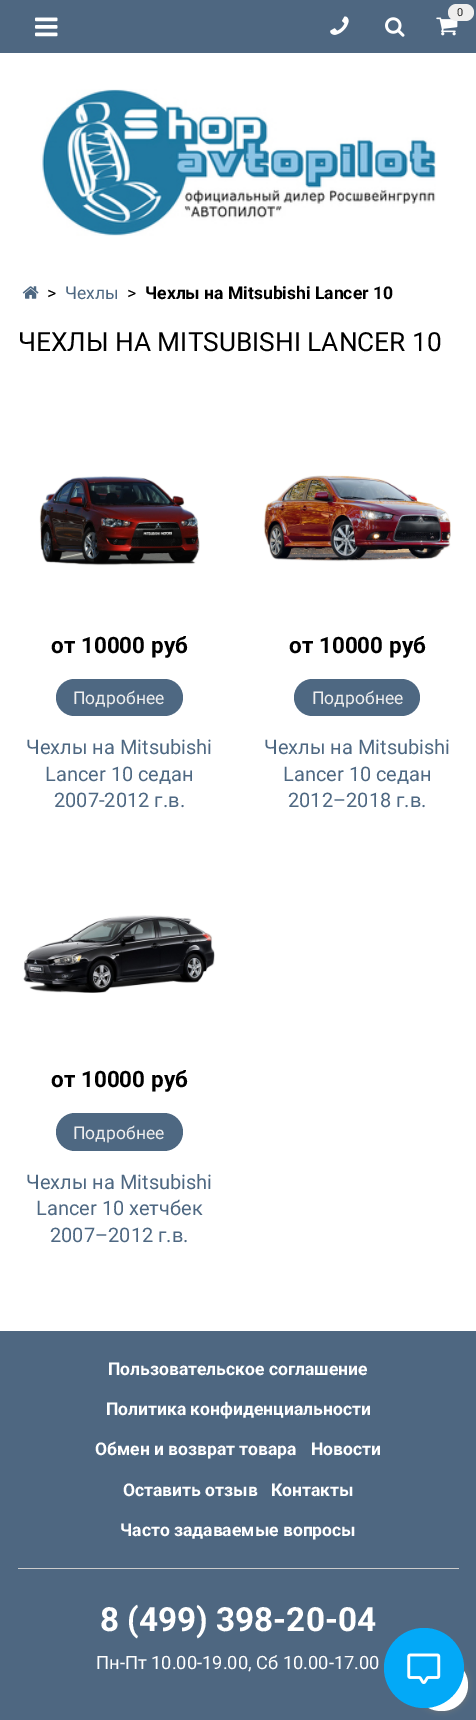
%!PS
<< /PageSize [476 1720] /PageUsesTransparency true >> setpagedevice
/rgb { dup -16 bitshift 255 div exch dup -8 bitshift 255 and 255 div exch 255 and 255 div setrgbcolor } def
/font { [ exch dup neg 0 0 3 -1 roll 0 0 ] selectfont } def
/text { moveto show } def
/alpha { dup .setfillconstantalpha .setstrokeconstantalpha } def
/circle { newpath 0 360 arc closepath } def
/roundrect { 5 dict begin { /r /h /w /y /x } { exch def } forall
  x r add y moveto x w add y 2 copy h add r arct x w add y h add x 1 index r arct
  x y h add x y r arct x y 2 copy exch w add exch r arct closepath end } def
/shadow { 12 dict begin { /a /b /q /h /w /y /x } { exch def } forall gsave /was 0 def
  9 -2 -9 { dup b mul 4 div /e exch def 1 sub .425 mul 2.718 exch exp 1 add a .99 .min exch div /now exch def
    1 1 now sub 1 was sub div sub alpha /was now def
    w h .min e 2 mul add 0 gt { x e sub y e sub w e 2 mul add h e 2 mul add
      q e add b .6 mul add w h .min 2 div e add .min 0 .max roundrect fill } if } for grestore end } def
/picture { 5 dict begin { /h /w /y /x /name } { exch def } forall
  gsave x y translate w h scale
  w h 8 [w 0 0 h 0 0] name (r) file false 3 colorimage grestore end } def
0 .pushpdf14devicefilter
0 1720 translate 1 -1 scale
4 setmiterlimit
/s1 { /Roboto-Regular 11 font 16#222222 rgb } def
/s2 { /Roboto-Regular 17.5 font 16#000000 rgb } def
/s3 { /Roboto-Regular 17.5 font 16#4E6882 rgb } def
/s4 { /Roboto-Bold 17.5 font 16#000000 rgb } def
/s5 { /Roboto-Regular 26.25 font 16#000000 rgb } def
/s6 { /Roboto-Bold 22.5 font 16#000000 rgb } def
/s7 { /Roboto-Regular 17.5 font 16#EEEEEE rgb } def
/s8 { /Roboto-Regular 20 font 16#4E6882 rgb } def
/s9 { /Roboto-Bold 17.5 font 16#FFFFFF rgb } def
/s10 { /Roboto-Bold 33.25 font 16#FFFFFF rgb } def
/s11 { /Roboto-Regular 18.3 font 16#FFFFFF rgb } def
16#FFFFFF rgb
0 0 476 1720 rectfill
16#4E6781 rgb
0 0 476 53 rectfill
(pic1.raw) 436 17 22 19 picture
16#EEEEEE rgb
448 4 26 17 8.5 roundrect fill
s1
(0) 457 16 text
(pic2.raw) 330 16 19 19 picture
(pic3.raw) 385 17 20 20 picture
(pic4.raw) 35 17 23 20 picture
(pic5.raw) 40 89 396 147 picture
(pic6.raw) 22 286 17 13 picture
s2
(>) 47 299 text
s3
(Чехлы) 65 299 text
s2
(>) 127 299 text
s4
(Чехлы на Mitsubishi Lancer 10) 145 299 text
s5
(ЧЕХЛЫ НА MITSUBISHI LANCER 10) 18 351 text
(pic7.raw) 39 476 161 90 picture
s6
(от 10000 руб) 51 653 text
16#4E6882 rgb
56 679 127 37 18.5 roundrect fill
s7
(Подробнее) 73 704 text
s8
(Чехлы на Mitsubishi) 26 754 text
(Lancer 10 седан) 45 781 text
(2007-2012 г.в.) 54 807 text
(pic8.raw) 263 475 188 87 picture
s6
(от 10000 руб) 289 653 text
16#4E6882 rgb
294 679 126 37 18.5 roundrect fill
s7
(Подробнее) 312 704 text
s8
(Чехлы на Mitsubishi) 264 754 text
(Lancer 10 седан) 283 781 text
(2012–2018 г.в.) 288 807 text
(pic9.raw) 23 915 192 78 picture
s6
(от 10000 руб) 51 1087 text
16#4E6882 rgb
56 1113 127 38 19 roundrect fill
s7
(Подробнее) 73 1139 text
s8
(Чехлы на Mitsubishi) 26 1189 text
(Lancer 10 хетчбек) 36 1215 text
(2007–2012 г.в.) 50 1242 text
16#4E6781 rgb
0 1331 476 389 rectfill
16#CCCCCC rgb
18 1568 441 1 rectfill
s9
(Пользовательское соглашение) 108 1375 text
(Политика конфиденциальности) 106 1415 text
(Обмен и возврат товара) 95 1455 text
(Новости) 311 1455 text
(Оставить отзыв) 123 1496 text
(Контакты) 271 1496 text
(Часто задаваемые вопросы) 120 1536 text
s10
(8 \(499\) 398-20-04) 100 1631 text
s11
(Пн-Пт 10.00-19.00, Сб 10.00-17.00) 96 1669 text
16#777777 rgb
415 1659 53 52 26 3 1 shadow
16#FFFFFF rgb
415 1659 53 52 26 roundrect fill
16#03A9F7 rgb
424 1668 40 circle fill
(pic10.raw) 407 1653 34 31 picture
.poppdf14devicefilter showpage
